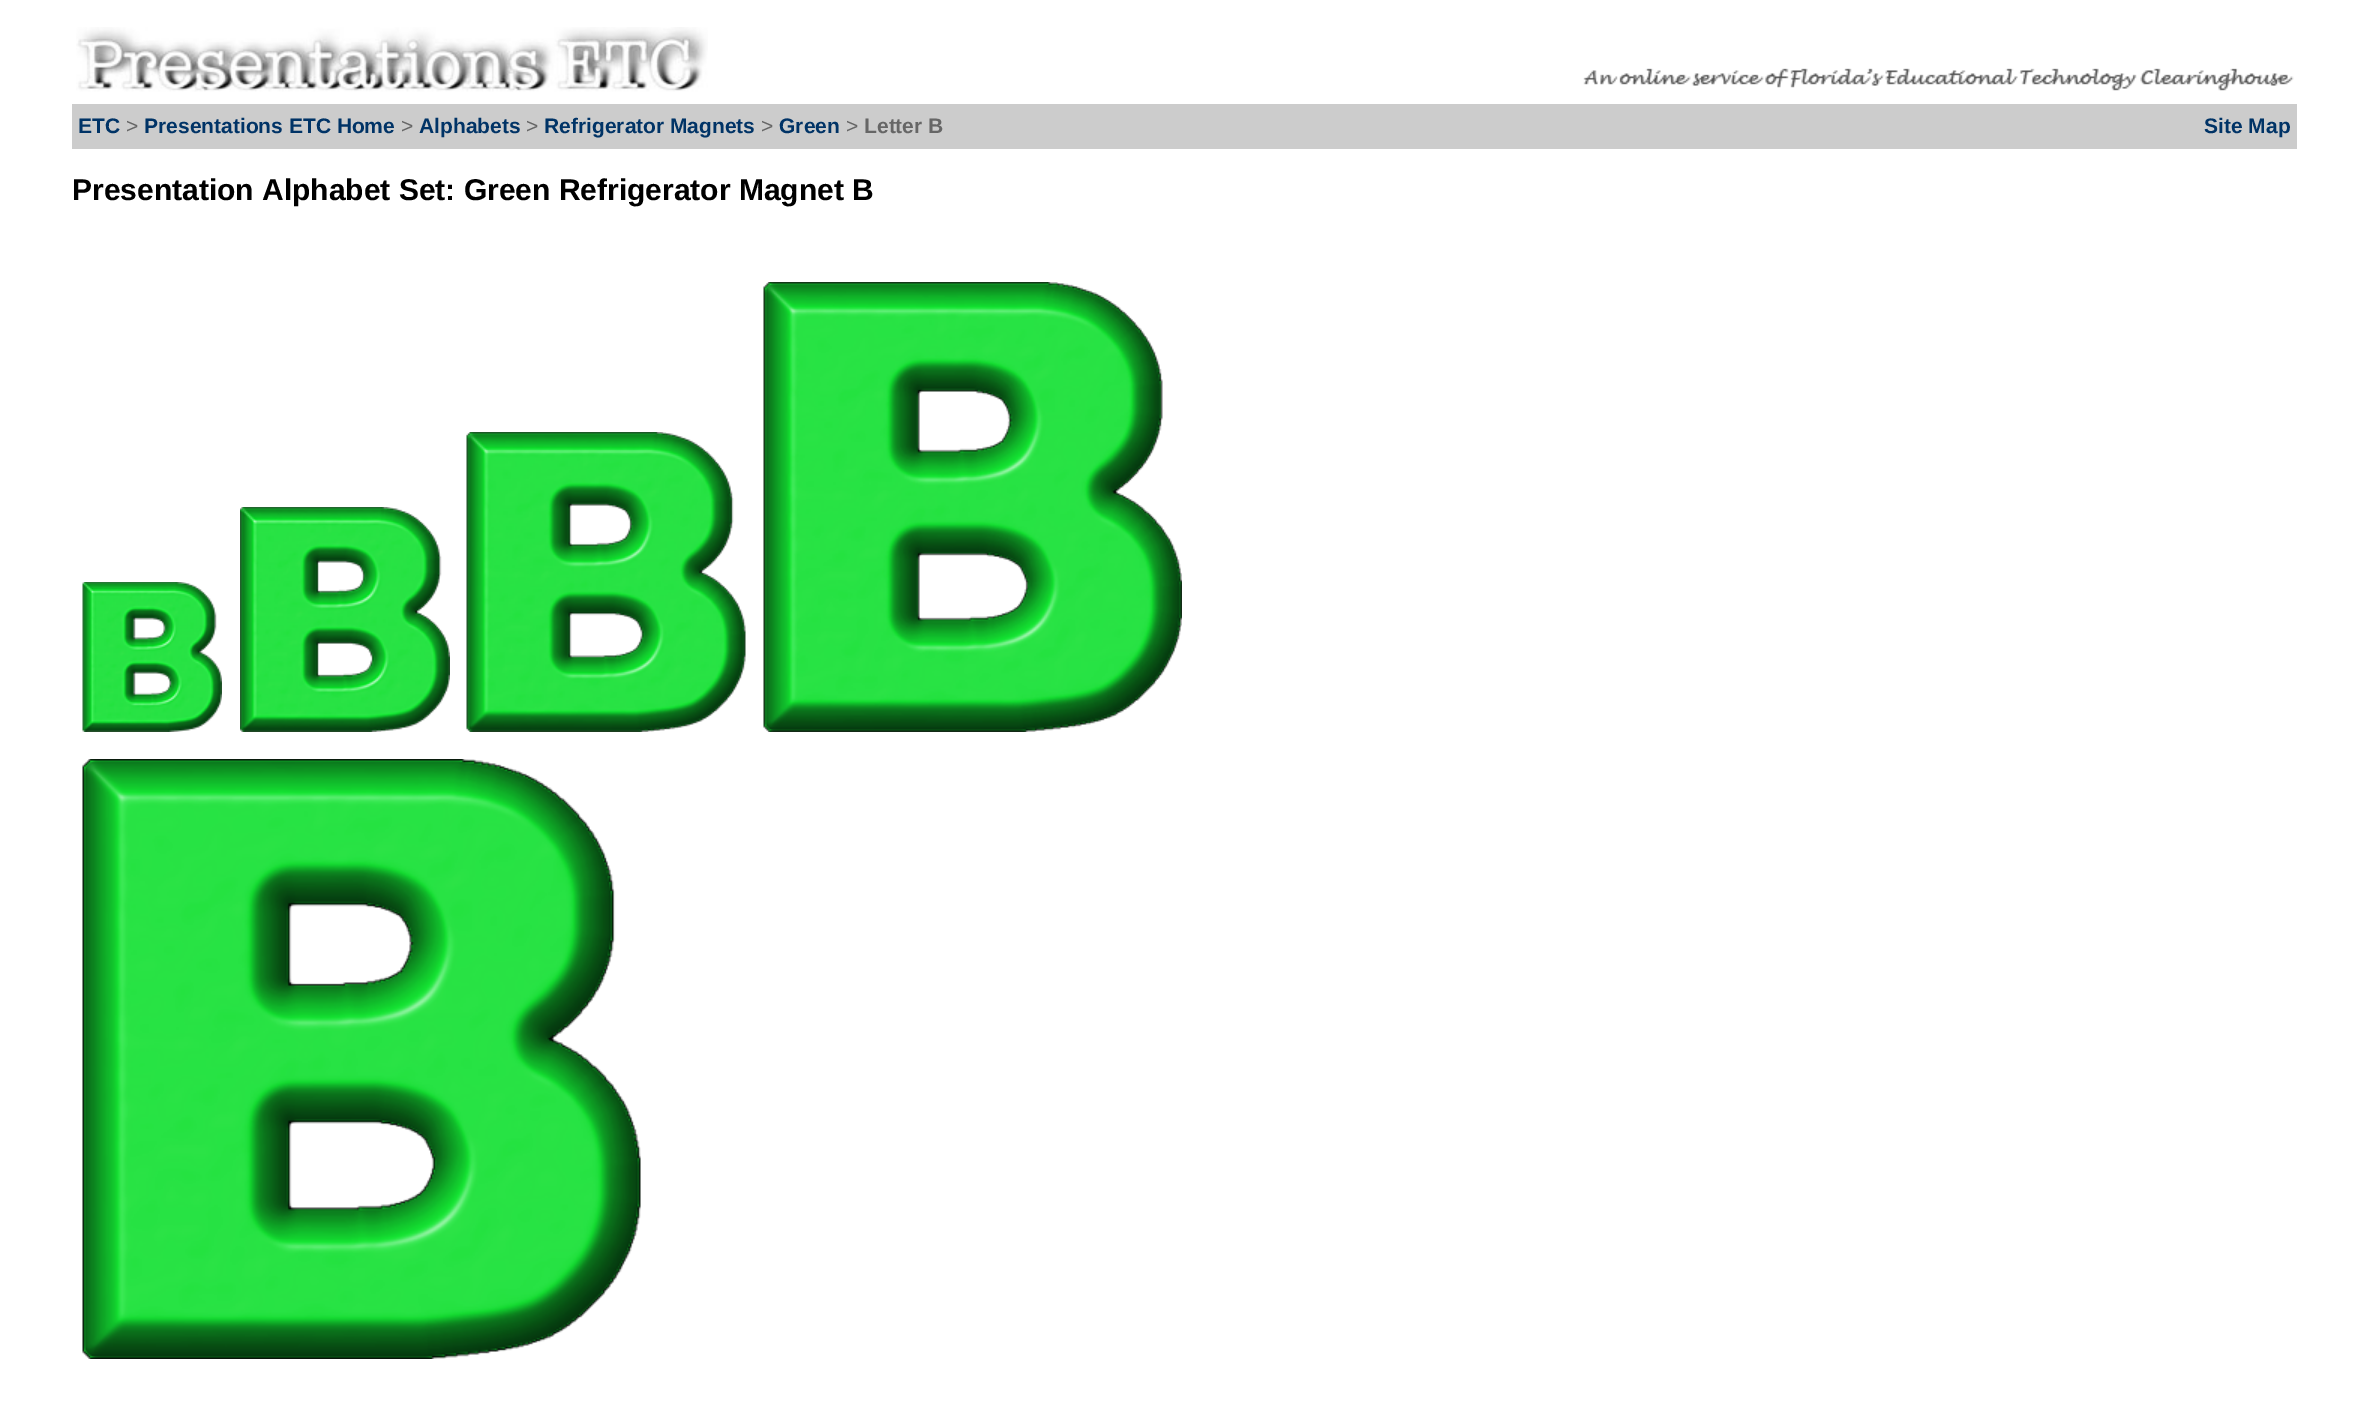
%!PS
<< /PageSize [2368 1406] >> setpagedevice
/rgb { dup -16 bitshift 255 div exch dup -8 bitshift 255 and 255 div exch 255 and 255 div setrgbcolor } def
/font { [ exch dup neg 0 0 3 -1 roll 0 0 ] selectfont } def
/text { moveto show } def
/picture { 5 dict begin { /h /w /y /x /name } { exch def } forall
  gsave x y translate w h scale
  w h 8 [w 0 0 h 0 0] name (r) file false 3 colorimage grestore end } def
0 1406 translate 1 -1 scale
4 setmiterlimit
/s1 { /LiberationSans-Bold 21 font 16#003366 rgb } def
/s2 { /LiberationSans-Regular 21 font 16#666666 rgb } def
/s3 { /LiberationSans-Bold 21 font 16#666666 rgb } def
/s4 { /LiberationSans-Bold 30 font 16#000000 rgb } def
16#FFFFFF rgb
0 0 2368 1406 rectfill
(pic1.raw) 76 27 632 65 picture
(pic2.raw) 1583 68 711 23 picture
16#CCCCCC rgb
72 104 2225 45 rectfill
s1
(ETC) 78 133 text
s2
(>) 126 133 text
s1
(Presentations ETC Home) 144 133 text
s2
(>) 401 133 text
s1
(Alphabets) 419 133 text
s2
(>) 526 133 text
s1
(Refrigerator Magnets) 544 133 text
s2
(>) 761 133 text
s1
(Green) 779 133 text
s2
(>) 846 133 text
s3
(Letter B) 864 133 text
s1
(Site Map) 2204 133 text
s4
(Presentation Alphabet Set: Green Refrigerator Magnet B) 72 200 text
(pic3.raw) 82 582 140 150 picture
(pic4.raw) 240 507 210 225 picture
(pic5.raw) 466 432 280 300 picture
(pic6.raw) 763 282 419 450 picture
(pic7.raw) 82 759 559 600 picture
showpage
